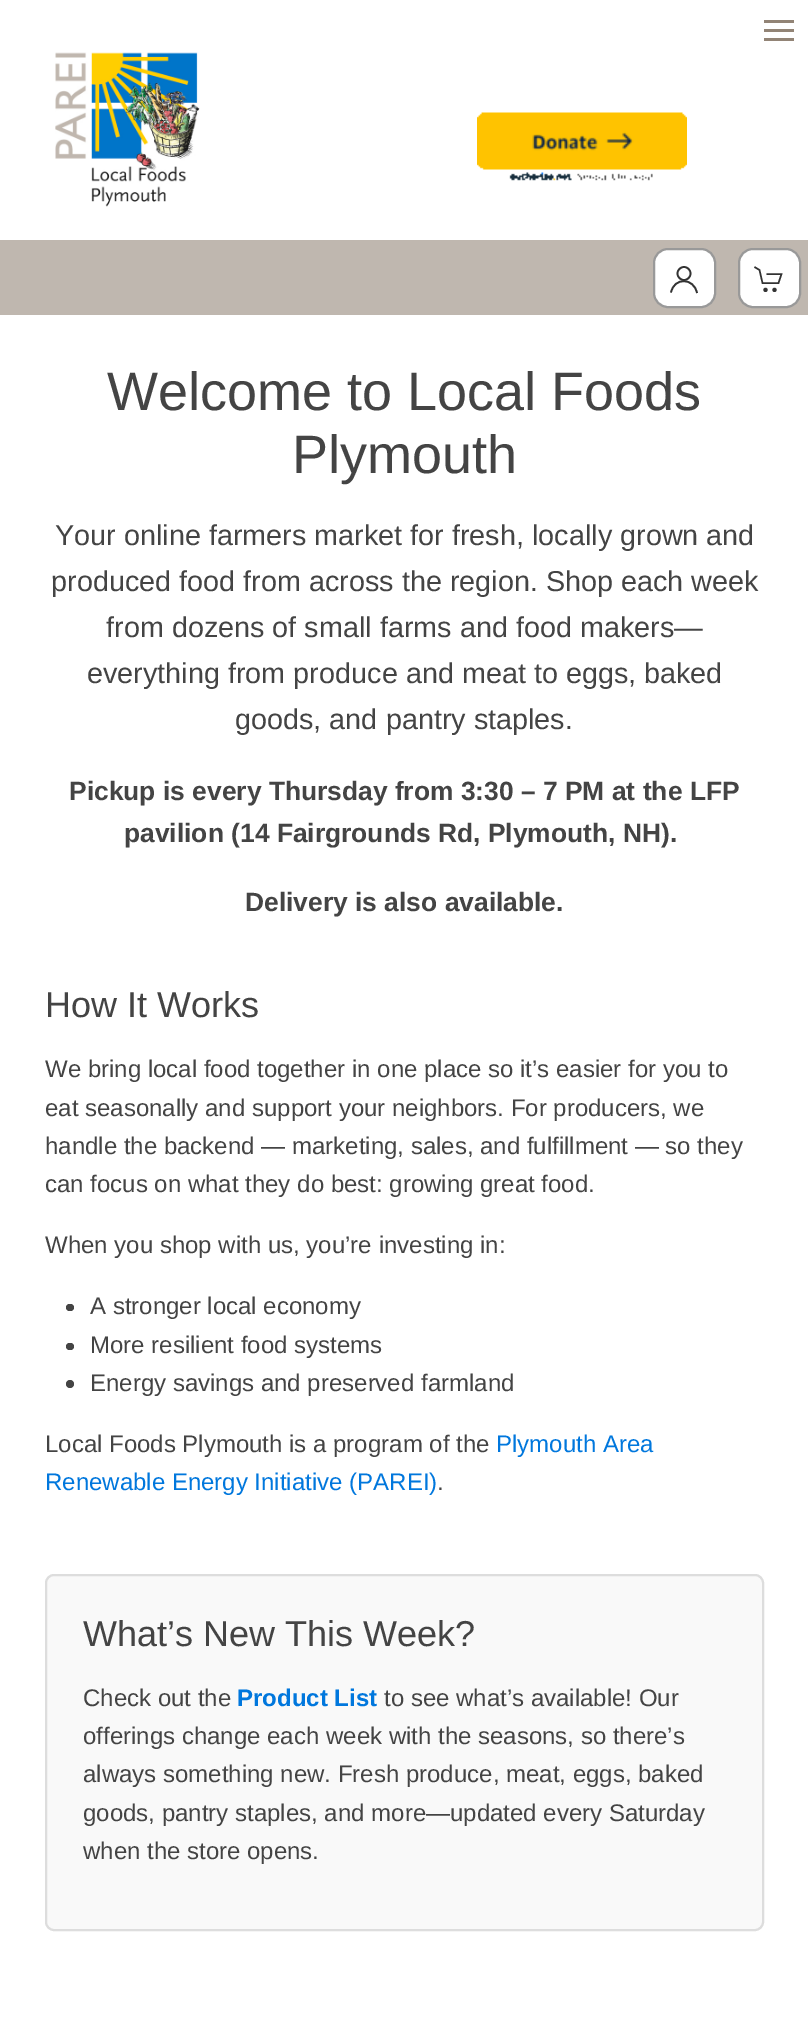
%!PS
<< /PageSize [808 2020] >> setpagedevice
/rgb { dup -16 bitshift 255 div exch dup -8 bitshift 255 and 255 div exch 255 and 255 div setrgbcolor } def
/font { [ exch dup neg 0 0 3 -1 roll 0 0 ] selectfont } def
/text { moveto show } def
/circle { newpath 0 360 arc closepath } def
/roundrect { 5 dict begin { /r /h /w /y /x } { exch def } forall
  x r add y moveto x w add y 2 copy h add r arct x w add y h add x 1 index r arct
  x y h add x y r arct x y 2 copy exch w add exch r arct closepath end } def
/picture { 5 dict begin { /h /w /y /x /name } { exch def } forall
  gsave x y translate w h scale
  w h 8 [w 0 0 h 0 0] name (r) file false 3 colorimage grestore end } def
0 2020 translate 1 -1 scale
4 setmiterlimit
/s1 { /LiberationSans-Regular 54 font 16#444444 rgb } def
/s2 { /LiberationSans-Regular 28.8 font 16#444444 rgb } def
/s3 { /LiberationSans-Bold 26.4 font 16#444444 rgb } def
/s4 { /LiberationSans-Regular 36 font 16#444444 rgb } def
/s5 { /LiberationSans-Regular 24 font 16#444444 rgb } def
/s6 { /LiberationSans-Regular 24 font 16#0077DD rgb } def
/s7 { /LiberationSans-Bold 24 font 16#0077DD rgb } def
16#FFFFFF rgb
0 0 808 2020 rectfill
16#928476 rgb
764 20 30 3 rectfill
764 29 30 3 rectfill
764 38 30 3 rectfill
(pic1.raw) 55 52 145 155 picture
(pic2.raw) 477 112 210 69 picture
16#BFB7AF rgb
0 240 808 75 rectfill
16#FFFFFF rgb
654 249 61 58 14 roundrect gsave fill grestore
16#999999 rgb
2 setlinewidth
stroke
16#333333 rgb
1.7 setlinewidth
684 273.5 6.5 circle stroke
671 292.5 moveto 674 277 694 277.5 697 293 curveto stroke
16#FFFFFF rgb
739 249 61 58 14 roundrect gsave fill grestore
16#999999 rgb
2 setlinewidth
stroke
16#333333 rgb
1.5 setlinewidth
754.5 267 moveto 759.5 270 lineto 762.5 283 lineto 778.5 283 lineto 781.5 274 lineto 766.5 274 lineto stroke
765.5 289.9 2.1 circle fill
774.5 289.9 2.1 circle fill
s1
(Welcome to Local Foods) 107 410 text
(Plymouth) 292 473 text
s2
(Your online farmers market for fresh, locally grown and) 55 545 text
(produced food from across the region. Shop each week) 51 591 text
(from dozens of small farms and food makers—) 106 637 text
(everything from produce and meat to eggs, baked) 87 683 text
(goods, and pantry staples.) 235 729 text
s3
(Pickup is every Thursday from 3:30 – 7 PM at the LFP) 69 800 text
(pavilion \(14 Fairgrounds Rd, Plymouth, NH\).) 124 842 text
(Delivery is also available.) 245 911 text
s4
(How It Works) 45 1017 text
s5
(We bring local food together in one place so it’s easier for you to) 45 1077 text
(eat seasonally and support your neighbors. For producers, we) 45 1116 text
(handle the backend — marketing, sales, and fulfillment — so they) 45 1154 text
(can focus on what they do best: growing great food.) 45 1192 text
(When you shop with us, you’re investing in:) 45 1253 text
66 1304 8 7 3.5 roundrect fill
(A stronger local economy) 90 1314 text
66 1343 8 7 3.5 roundrect fill
(More resilient food systems) 90 1353 text
70 1384 4 circle fill
(Energy savings and preserved farmland) 90 1391 text
(Local Foods Plymouth is a program of the) 45 1452 text
s6
(Plymouth Area) 496 1452 text
(Renewable Energy Initiative \(PAREI\)) 45 1490 text
s5
(.) 437 1490 text
16#F9F9F9 rgb
46 1575 717 355 8 roundrect gsave fill grestore
16#DDDDDD rgb
2 setlinewidth
stroke
s4
(What’s New This Week?) 83 1646 text
s5
(Check out the) 83 1706 text
s7
(Product List) 237 1706 text
s5
(to see what’s available! Our) 384 1706 text
(offerings change each week with the seasons, so there’s) 83 1744 text
(always something new. Fresh produce, meat, eggs, baked) 83 1782 text
(goods, pantry staples, and more—updated every Saturday) 83 1821 text
(when the store opens.) 83 1859 text
showpage
